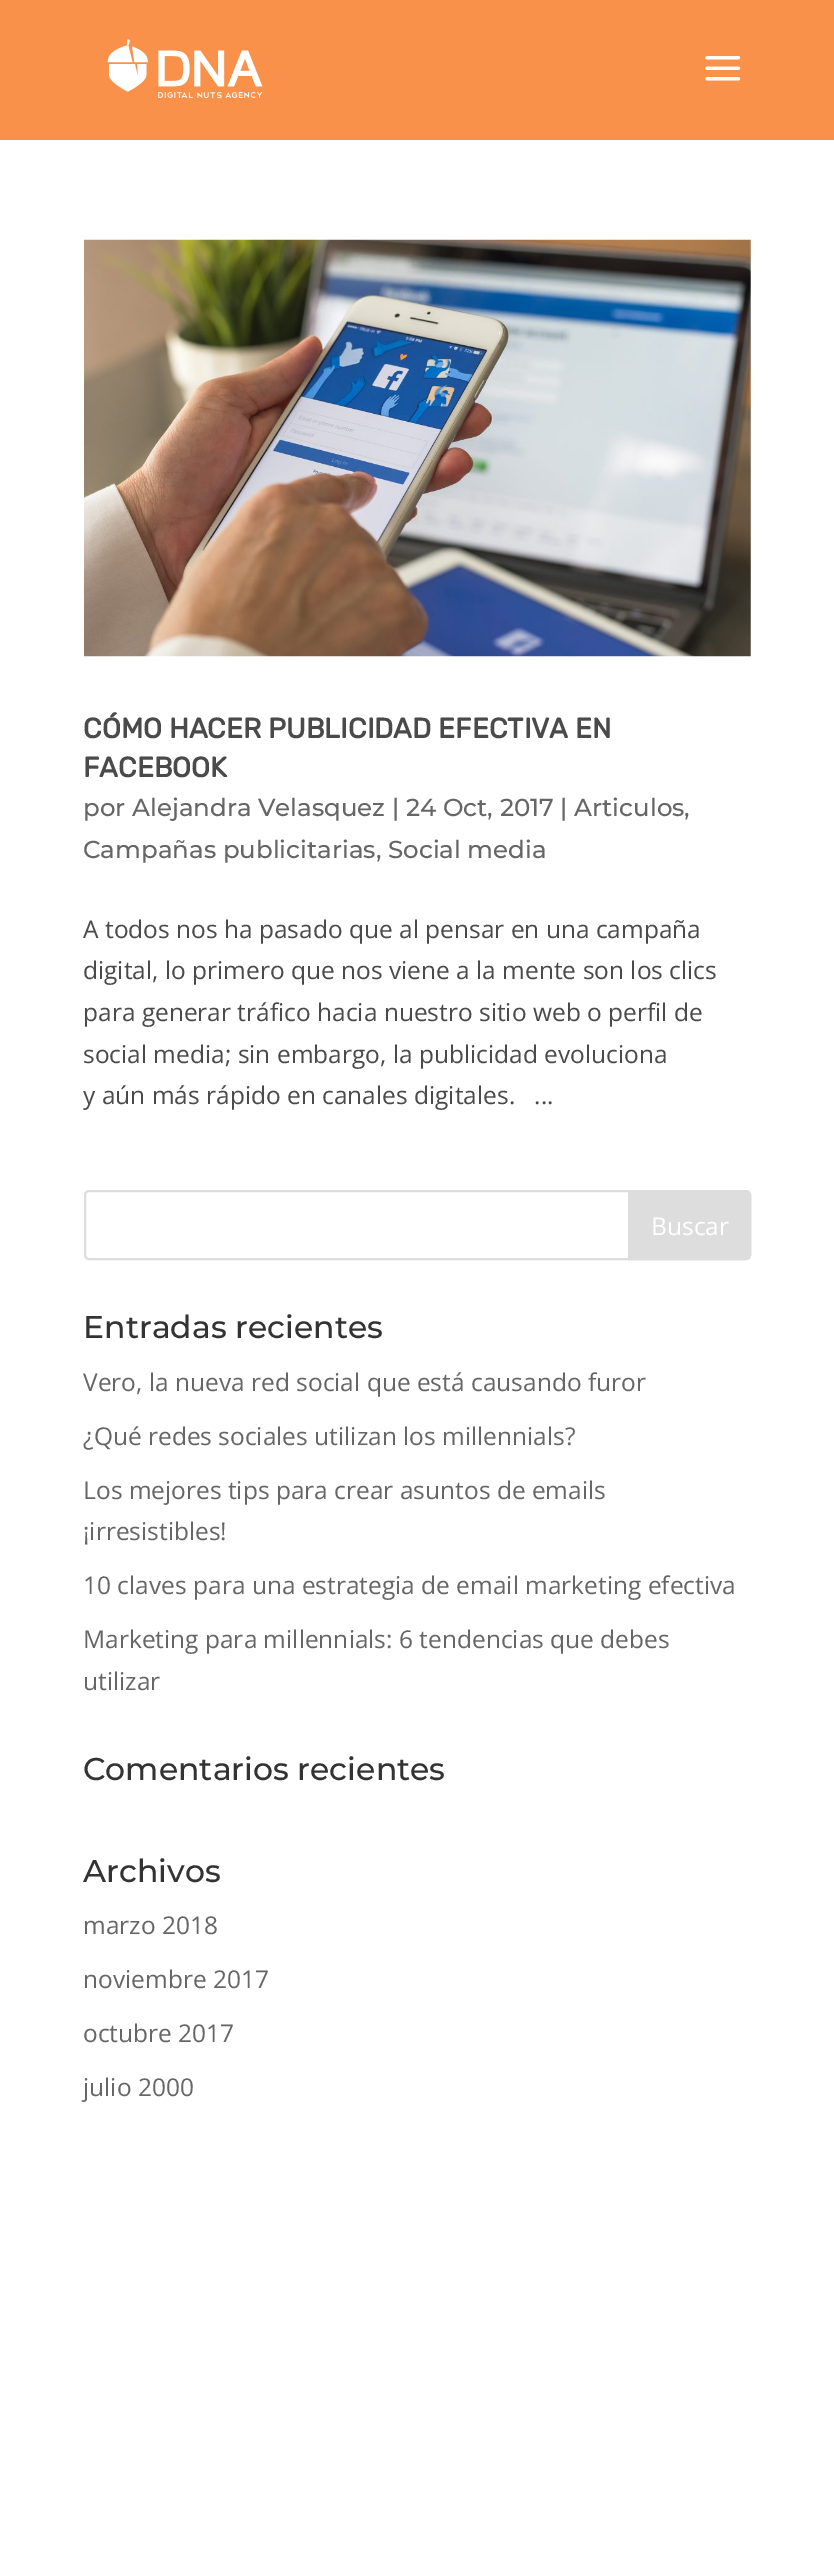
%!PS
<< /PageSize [834 2568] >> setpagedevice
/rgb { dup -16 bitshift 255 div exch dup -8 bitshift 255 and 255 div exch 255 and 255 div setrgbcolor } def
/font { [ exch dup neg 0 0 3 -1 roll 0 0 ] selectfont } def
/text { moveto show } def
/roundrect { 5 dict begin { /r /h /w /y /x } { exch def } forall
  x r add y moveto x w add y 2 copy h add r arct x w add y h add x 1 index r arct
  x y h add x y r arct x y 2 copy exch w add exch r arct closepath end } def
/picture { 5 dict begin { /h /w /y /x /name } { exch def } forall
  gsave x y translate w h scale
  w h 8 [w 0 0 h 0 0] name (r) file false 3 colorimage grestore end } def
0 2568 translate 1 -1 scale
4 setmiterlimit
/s1 { /Rubik-Bold 28 font 16#4A4A4A rgb } def
/s2 { /Montserrat-Medium 24.5 font 16#666666 rgb } def
/s3 { /OpenSans-Regular 24.5 font 16#4A4A4A rgb } def
/s4 { /OpenSans-Regular 24.5 font 16#FFFFFF rgb } def
/s5 { /Montserrat-Medium 31.5 font 16#333333 rgb } def
/s6 { /OpenSans-Regular 24.5 font 16#666666 rgb } def
16#FFFFFF rgb
0 0 834 2568 rectfill
16#FA914B rgb
0 0 834 140 rectfill
(pic1.raw) 107 39 156 60 picture
(pic2.raw) 705 56 36 25 picture
(pic3.raw) 84 239 667 418 picture
s1
(CÓMO HACER PUBLICIDAD EFECTIVA EN) 83 738 text
(FACEBOOK) 83 777 text
s2
(por Alejandra Velasquez | 24 Oct, 2017 | Articulos,) 83 816 text
(Campañas publicitarias, Social media) 83 858 text
s3
(A todos nos ha pasado que al pensar en una campaña) 83 938 text
(digital, lo primero que nos viene a la mente son los clics) 83 979 text
(para generar tráfico hacia nuestro sitio web o perfil de) 83 1021 text
(social media; sin embargo, la publicidad evoluciona) 83 1063 text
(y aún más rápido en canales digitales.   ...) 83 1104 text
16#DDDDDD rgb
2 setlinewidth
85 1191 665 68 4 roundrect stroke
629 1191 moveto 746 1191 lineto 748 1191 750 1193 750 1195 curveto 750 1255 lineto 750 1257 748 1259 746 1259 curveto 629 1259 lineto closepath gsave fill grestore
stroke
s4
(Buscar) 651 1235 text
s5
(Entradas recientes) 83 1338 text
s6
(Vero, la nueva red social que está causando furor) 83 1391 text
(¿Qué redes sociales utilizan los millennials?) 83 1445 text
(Los mejores tips para crear asuntos de emails) 83 1499 text
(¡irresistibles!) 83 1540 text
(10 claves para una estrategia de email marketing efectiva) 83 1594 text
(Marketing para millennials: 6 tendencias que debes) 83 1648 text
(utilizar) 83 1690 text
s5
(Comentarios recientes) 83 1780 text
(Archivos) 83 1882 text
s6
(marzo 2018) 83 1934 text
(noviembre 2017) 83 1988 text
(octubre 2017) 83 2042 text
(julio 2000) 83 2096 text
showpage
